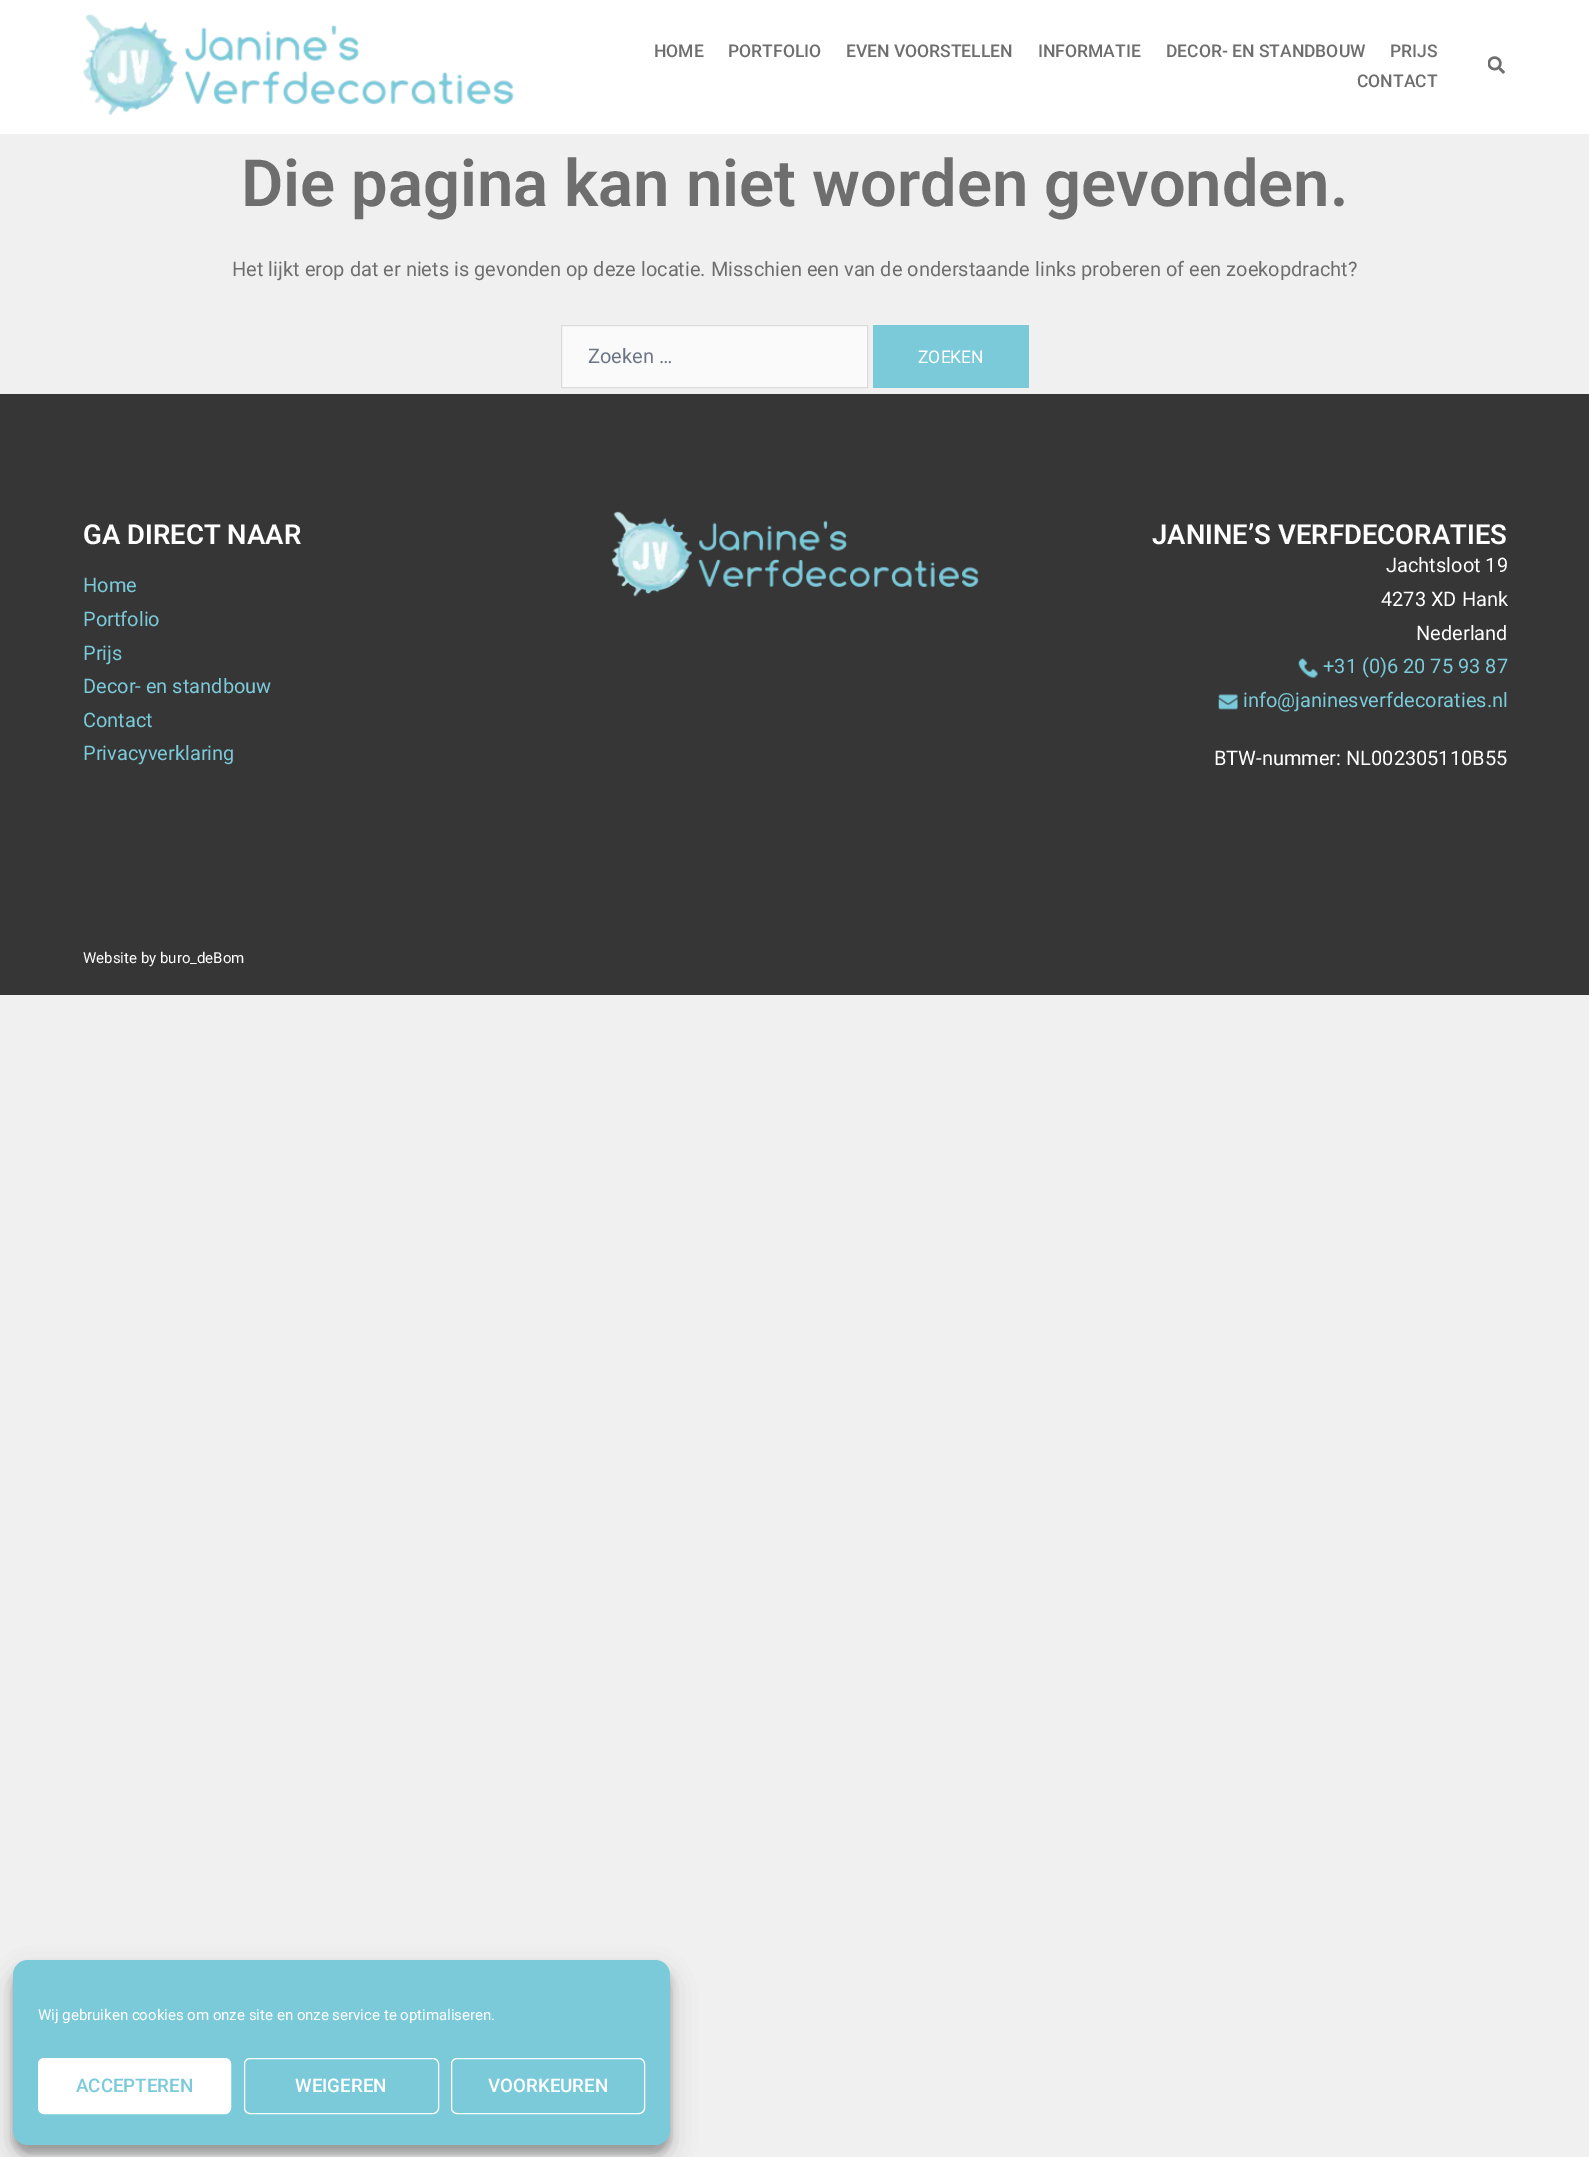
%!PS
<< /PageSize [1589 2157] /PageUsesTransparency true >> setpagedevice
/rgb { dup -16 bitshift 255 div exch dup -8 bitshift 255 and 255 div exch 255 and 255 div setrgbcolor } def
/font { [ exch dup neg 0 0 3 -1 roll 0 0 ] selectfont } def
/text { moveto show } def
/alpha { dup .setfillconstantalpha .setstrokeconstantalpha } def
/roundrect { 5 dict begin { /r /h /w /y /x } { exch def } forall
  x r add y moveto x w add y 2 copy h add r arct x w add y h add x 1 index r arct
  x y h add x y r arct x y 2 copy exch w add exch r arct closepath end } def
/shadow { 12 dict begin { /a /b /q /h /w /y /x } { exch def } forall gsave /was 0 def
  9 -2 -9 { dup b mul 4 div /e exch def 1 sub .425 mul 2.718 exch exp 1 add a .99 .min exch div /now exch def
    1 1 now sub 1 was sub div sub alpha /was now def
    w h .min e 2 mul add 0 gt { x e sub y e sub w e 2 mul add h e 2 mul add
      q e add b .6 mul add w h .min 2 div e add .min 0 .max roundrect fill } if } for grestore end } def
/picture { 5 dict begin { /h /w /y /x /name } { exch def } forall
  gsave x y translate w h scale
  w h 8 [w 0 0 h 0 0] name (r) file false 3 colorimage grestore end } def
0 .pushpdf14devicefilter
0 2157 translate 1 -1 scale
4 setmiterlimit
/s1 { /Roboto-Medium 17.5 font 16#6E6E6E rgb } def
/s2 { /Roboto-SemiBold 65 font 16#6E6E6E rgb } def
/s3 { /Roboto-Regular 20 font 16#6E6E6E rgb } def
/s4 { /Roboto-Regular 20 font 16#6D7685 rgb } def
/s5 { /Roboto-Regular 17.5 font 16#FFFFFF rgb } def
/s6 { /Roboto-SemiBold 27.5 font 16#FFFFFF rgb } def
/s7 { /Roboto-Regular 20 font 16#7BCADA rgb } def
/s8 { /Roboto-Regular 20 font 16#FFFFFF rgb } def
/s9 { /Roboto-Regular 15 font 16#FFFFFF rgb } def
/s10 { /Roboto-Medium 18.75 font 16#7BCADA rgb } def
/s11 { /Roboto-Medium 18.75 font 16#FFFFFF rgb } def
16#F0F0F0 rgb
0 0 1589 2157 rectfill
16#FFFFFF rgb
0 0 1589 134 rectfill
(pic1.raw) 83 14 431 101 picture
s1
(HOME) 654 57 text
(PORTFOLIO) 728 57 text
(EVEN VOORSTELLEN) 846 57 text
(INFORMATIE) 1038 57 text
(DECOR- EN STANDBOUW) 1166 57 text
(PRIJS) 1390 57 text
(CONTACT) 1357 87 text
(pic2.raw) 1488 56 17 18 picture
s2
(Die pagina kan niet worden gevonden.) 241 206 text
s3
(Het lijkt erop dat er niets is gevonden op deze locatie. Misschien een van de onderstaande links proberen of een zoekopdracht?) 232 276 text
16#FAFAFA rgb
561.5 325.5 moveto 867.5 325.5 lineto 867.5 387.5 lineto 561.5 387.5 lineto closepath gsave fill grestore
16#DBDBDB rgb
stroke
s4
(Zoeken …) 588 363 text
16#7BCADA rgb
873 325 156 63 rectfill
s5
(ZOEKEN) 918 363 text
16#363636 rgb
0 394 1589 601 rectfill
s6
(GA DIRECT NAAR) 83 544 text
s7
(Home) 83 592 text
(Portfolio) 83 626 text
(Prijs) 83 660 text
(Decor- en standbouw) 83 693 text
(Contact) 83 727 text
(Privacyverklaring) 83 760 text
(pic3.raw) 611 511 368 86 picture
s6
(JANINE’S VERFDECORATIES) 1152 544 text
s8
(Jachtsloot 19) 1386 572 text
(4273 XD Hank) 1381 606 text
(Nederland) 1416 640 text
(pic4.raw) 1298 658 20 20 picture
s7
(+31 \(0\)6 20 75 93 87) 1323 673 text
(pic5.raw) 1218 694 20 16 picture
(info@janinesverfdecoraties.nl) 1243 707 text
s8
(BTW-nummer: NL002305110B55) 1214 765 text
s9
(Website by buro_deBom) 83 963 text
16#000000 rgb
13 1968 657 185 15 4 0.23 shadow
13 1973 657 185 15 12.5 0.19 shadow
16#7BCADA rgb
13 1960 657 185 15 roundrect fill
s9
(Wij gebruiken cookies om onze site en onze service te optimaliseren.) 38 2020 text
38.5 2058.5 192 55 5.5 roundrect gsave fill grestore
stroke
s10
(ACCEPTEREN) 76 2092 text
16#FFFFFF rgb
244.5 2058.5 194 55 5.5 roundrect stroke
(WEIGEREN) 295 2092 text
451.5 2058.5 193 55 5.5 roundrect stroke
(VOORKEUREN) 488 2092 text
.poppdf14devicefilter showpage
